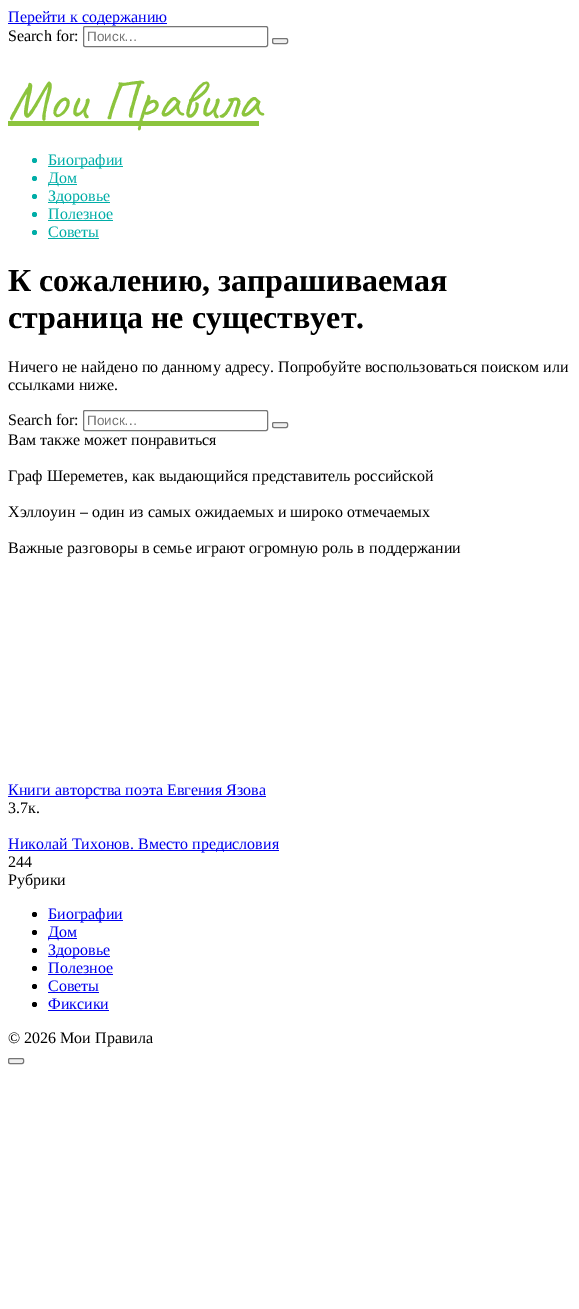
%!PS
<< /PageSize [579 1309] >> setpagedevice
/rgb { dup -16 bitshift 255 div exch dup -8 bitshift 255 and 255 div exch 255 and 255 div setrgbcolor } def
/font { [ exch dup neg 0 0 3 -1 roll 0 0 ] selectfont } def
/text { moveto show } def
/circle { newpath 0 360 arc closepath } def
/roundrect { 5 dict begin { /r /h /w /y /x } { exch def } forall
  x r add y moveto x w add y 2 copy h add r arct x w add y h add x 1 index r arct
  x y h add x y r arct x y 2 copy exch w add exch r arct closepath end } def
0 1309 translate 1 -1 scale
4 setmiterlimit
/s1 { /LiberationSerif-Regular 16 font 16#0000EE rgb } def
/s2 { /LiberationSerif-Regular 16 font 16#000000 rgb } def
/s3 { /LiberationSans-Regular 13.5 font 16#757575 rgb } def
/s4 { /LiberationSerif-Regular 16 font 16#00ADA7 rgb } def
/s5 { /LiberationSerif-Bold 32 font 16#000000 rgb } def
16#FFFFFF rgb
0 0 579 1309 rectfill
16#0000EE rgb
8 23 159 1 rectfill
s1
(Перейти к содержанию) 8 22 text
s2
(Search for:) 8 41 text
16#767676 rgb
83.5 26.5 184 20 1.5 roundrect stroke
s3
(Поиск…) 87 41 text
16#EFEFEF rgb
272.5 38.5 15 5 1.5 roundrect gsave fill grestore
16#767676 rgb
stroke
16#8CC43D rgb
8 121 251 5 rectfill
/Caveat-Regular 55 font
8 118 moveto 2 0 32 (Мои Правила) widthshow
16#00ADA7 rgb
34.5 160.5 2.5 circle fill
48 166 75 1 rectfill
s4
(Биографии) 48 165 text
34.5 178.5 2.5 circle fill
48 184 29 1 rectfill
(Дом) 48 183 text
34.5 196.5 2.5 circle fill
48 202 62 1 rectfill
(Здоровье) 48 201 text
34.5 214.5 2.5 circle fill
(Полезное) 48 219 text
48 220 65 1 rectfill
34.5 232.5 2.5 circle fill
(Советы) 48 237 text
48 238 51 1 rectfill
s5
(К сожалению, запрашиваемая) 8 291 text
(страница не существует.) 8 328 text
s2
(Ничего не найдено по данному адресу. Попробуйте воспользоваться поиском или) 8 372 text
(ссылками ниже.) 8 390 text
(Search for:) 8 425 text
16#767676 rgb
83.5 410.5 184 20 1.5 roundrect stroke
s3
(Поиск…) 87 425 text
16#EFEFEF rgb
272.5 422.5 15 5 1.5 roundrect gsave fill grestore
16#767676 rgb
stroke
s2
(Вам также может понравиться) 8 445 text
(Граф Шереметев, как выдающийся представитель российской) 8 481 text
(Хэллоуин – один из самых ожидаемых и широко отмечаемых) 8 517 text
(Важные разговоры в семье играют огромную роль в поддержании) 8 553 text
16#0000EE rgb
8 796 258 1 rectfill
(Книги авторства поэта Евгения Язова) 8 795 text
s2
(3.7к.) 8 813 text
16#0000EE rgb
8 850 271 1 rectfill
(Николай Тихонов. Вместо предисловия) 8 849 text
s2
(244) 8 867 text
(Рубрики) 8 885 text
34.5 914.5 2.5 circle fill
16#0000EE rgb
48 920 75 1 rectfill
(Биографии) 48 919 text
16#000000 rgb
34.5 932.5 2.5 circle fill
16#0000EE rgb
48 938 29 1 rectfill
(Дом) 48 937 text
16#000000 rgb
34.5 950.5 2.5 circle fill
16#0000EE rgb
48 956 62 1 rectfill
(Здоровье) 48 955 text
16#000000 rgb
34.5 968.5 2.5 circle fill
s1
(Полезное) 48 973 text
48 974 65 1 rectfill
16#000000 rgb
34.5 986.5 2.5 circle fill
s1
(Советы) 48 991 text
48 992 51 1 rectfill
16#000000 rgb
34.5 1004.5 2.5 circle fill
s1
(Фиксики) 48 1009 text
48 1010 61 1 rectfill
s2
(© 2026 Мои Правила) 8 1043 text
16#EFEFEF rgb
8.5 1058.5 15 5 1.5 roundrect gsave fill grestore
16#767676 rgb
stroke
showpage
